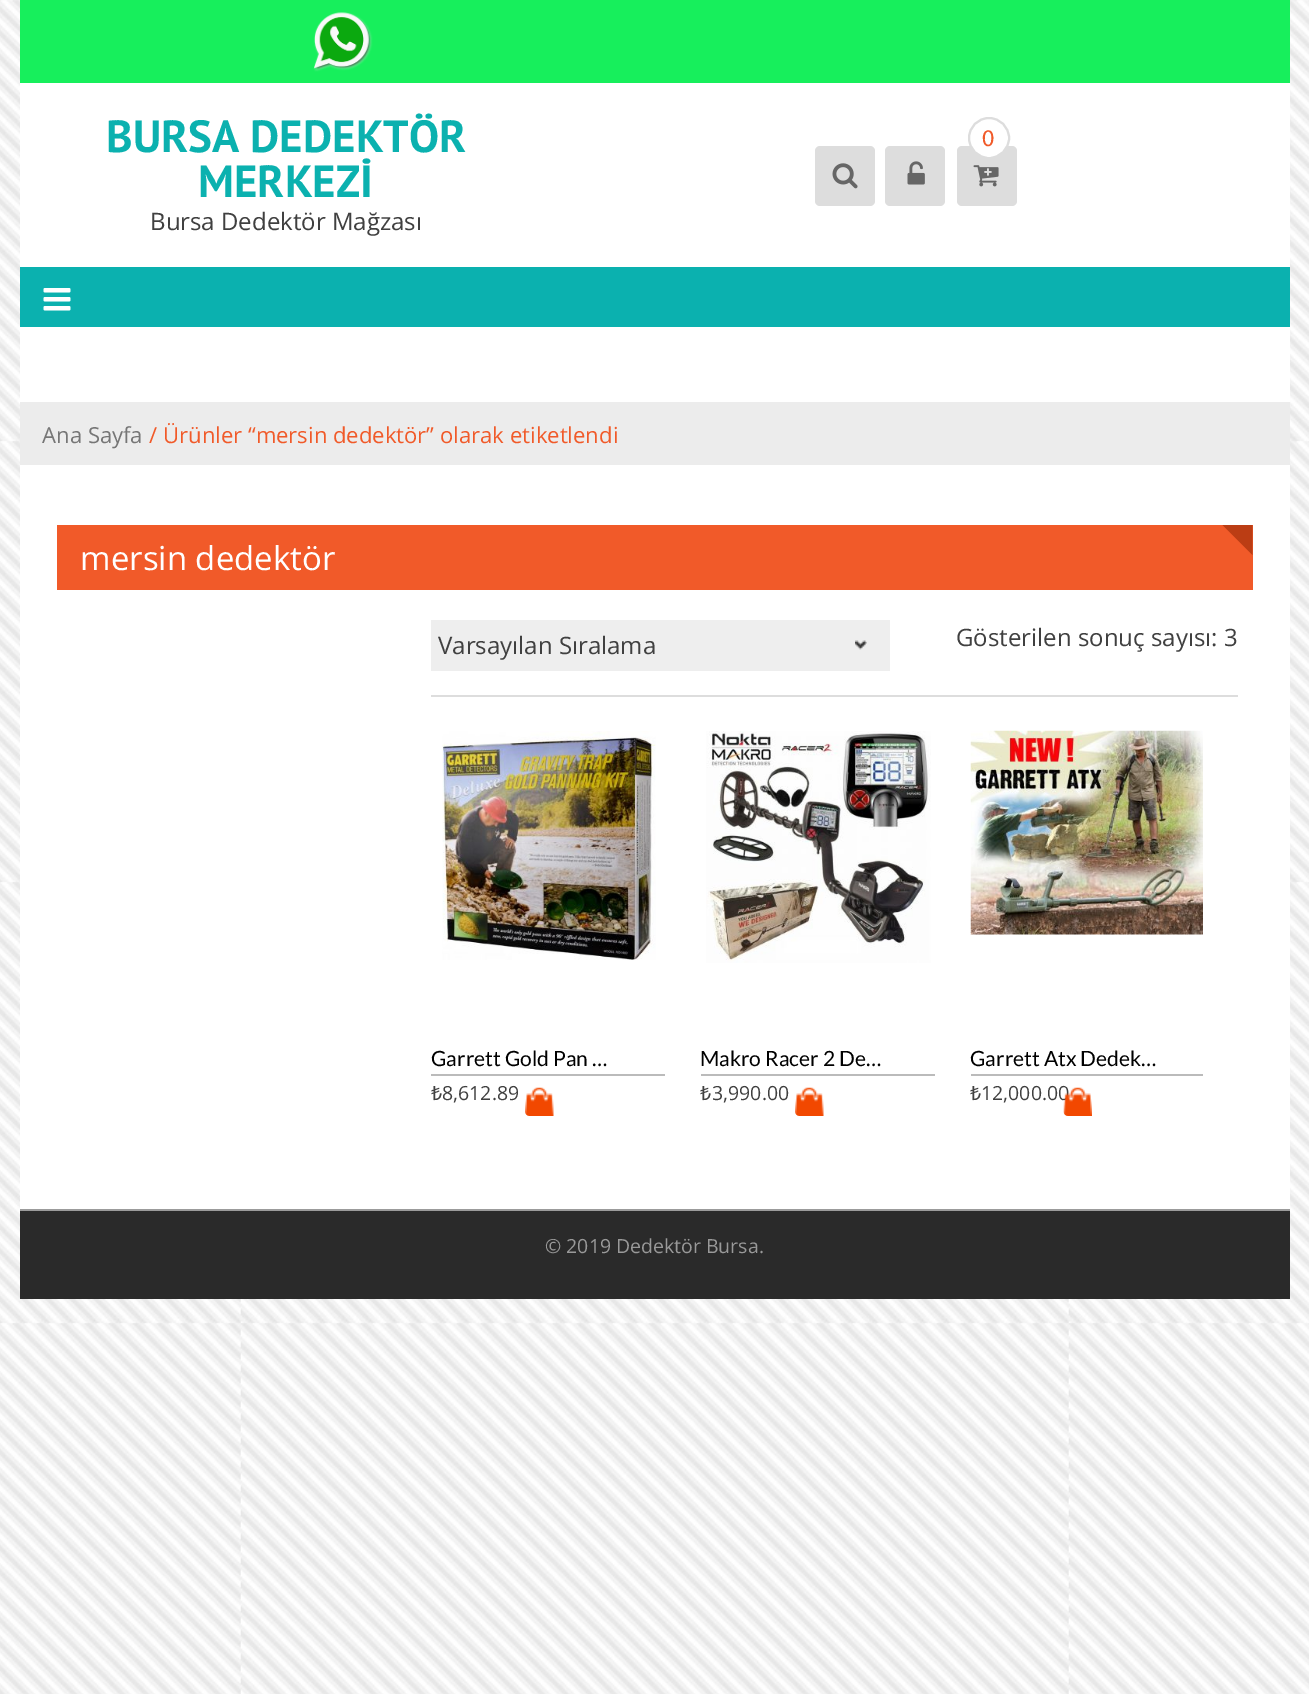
%!PS
<< /PageSize [1309 1694] >> setpagedevice
/rgb { dup -16 bitshift 255 div exch dup -8 bitshift 255 and 255 div exch 255 and 255 div setrgbcolor } def
/font { [ exch dup neg 0 0 3 -1 roll 0 0 ] selectfont } def
/text { moveto show } def
/circle { newpath 0 360 arc closepath } def
/roundrect { 5 dict begin { /r /h /w /y /x } { exch def } forall
  x r add y moveto x w add y 2 copy h add r arct x w add y h add x 1 index r arct
  x y h add x y r arct x y 2 copy exch w add exch r arct closepath end } def
/picture { 5 dict begin { /h /w /y /x /name } { exch def } forall
  gsave x y translate w h scale
  w h 8 [w 0 0 h 0 0] name (r) file false 3 colorimage grestore end } def
0 1694 translate 1 -1 scale
4 setmiterlimit
/s1 { /PTSans-Bold 45 font 16#0BB1AF rgb } def
/s2 { /OpenSans-Regular 24 font 16#404040 rgb } def
/s3 { /Myriad-Regular 24 font 16#F15A29 rgb } def
/s4 { /OpenSans-Regular 22.1 font 16#767676 rgb } def
/s5 { /OpenSans-Regular 22.1 font 16#F15A29 rgb } def
/s6 { /OpenSans-Regular 33 font 16#FFFFFF rgb } def
/s7 { /Lato-Regular 21 font 16#000000 rgb } def
/s8 { /NotoSans-Regular 19.5 font 16#404040 rgb } def
/s9 { /OpenSans-Regular 19.5 font 16#404040 rgb } def
/s10 { /OpenSans-Regular 19.5 font 16#999999 rgb } def
16#FFFFFF rgb
0 0 1309 1694 rectfill
(pic1.raw) 0 0 1309 1694 picture
20 83 1270 1126 rectfill
16#17EF5C rgb
20 0 1270 83 rectfill
(pic2.raw) 313 12 60 60 picture
s1
(BURSA DEDEKTÖR) 106 152 text
(MERKEZİ) 198 197 text
s2
(Bursa Dedektör Mağzası) 150 230 text
16#DDDDDD rgb
957 146 60 60 5 roundrect fill
16#FFFFFF rgb
989 138 20 circle gsave fill grestore
16#DDDDDD rgb
2 setlinewidth
stroke
s3
(0) 982 146 text
(pic3.raw) 973 165 26 22 picture
16#DDDDDD rgb
815 146 60 60 5 roundrect fill
(pic4.raw) 832 163 26 26 picture
885 146 60 60 5 roundrect fill
(pic5.raw) 907 161 18 24 picture
16#0BB1AF rgb
20 267 1270 60 rectfill
(pic6.raw) 43 288 28 23 picture
16#ECECEC rgb
20 402 1270 63 rectfill
s4
(Ana Sayfa) 42 443 text
s5
(/ Ürünler “mersin dedektör” olarak etiketlendi) 149 443 text
57 525 1196 65 rectfill
s6
(mersin dedektör) 80 570 text
16#BB3D14 rgb
1222.5 525 moveto 1252.5 525 lineto 1252.5 555 lineto closepath fill
16#EEEEEE rgb
431 620 459 51 rectfill
(pic7.raw) 855 640 12 10 picture
s2
(Varsayılan Sıralama) 438 654 text
(Gösterilen sonuç sayısı: 3) 956 646 text
16#DDDDDD rgb
431 695 807 2 rectfill
(pic8.raw) 442 731 214 229 picture
16#BBBBBB rgb
431 1074 234 2 rectfill
s7
(Garrett Gold Pan …) 431 1066 text
(pic9.raw) 525 1087 29 29 picture
s8
(₺) 431 1100 text
s9
(8,612.89) 442 1100 text
(pic10.raw) 706 731 225 232 picture
16#BBBBBB rgb
701 1074 234 2 rectfill
s7
(Makro Racer 2 De…) 700 1066 text
(pic11.raw) 795 1087 29 29 picture
s8
(₺) 700 1100 text
s9
(3,990.00) 712 1100 text
(pic12.raw) 970 730 233 205 picture
16#BBBBBB rgb
971 1074 232 2 rectfill
s7
(Garrett Atx Dedek…) 970 1066 text
s9
(12,000.00) 981 1100 text
(pic13.raw) 1063 1087 29 29 picture
s8
(₺) 970 1100 text
16#2A2A2A rgb
20 1211 1270 88 rectfill
16#9B9B9B rgb
20 1209 1270 2 rectfill
s10
(© 2019 Dedektör Bursa.) 545 1253 text
showpage
